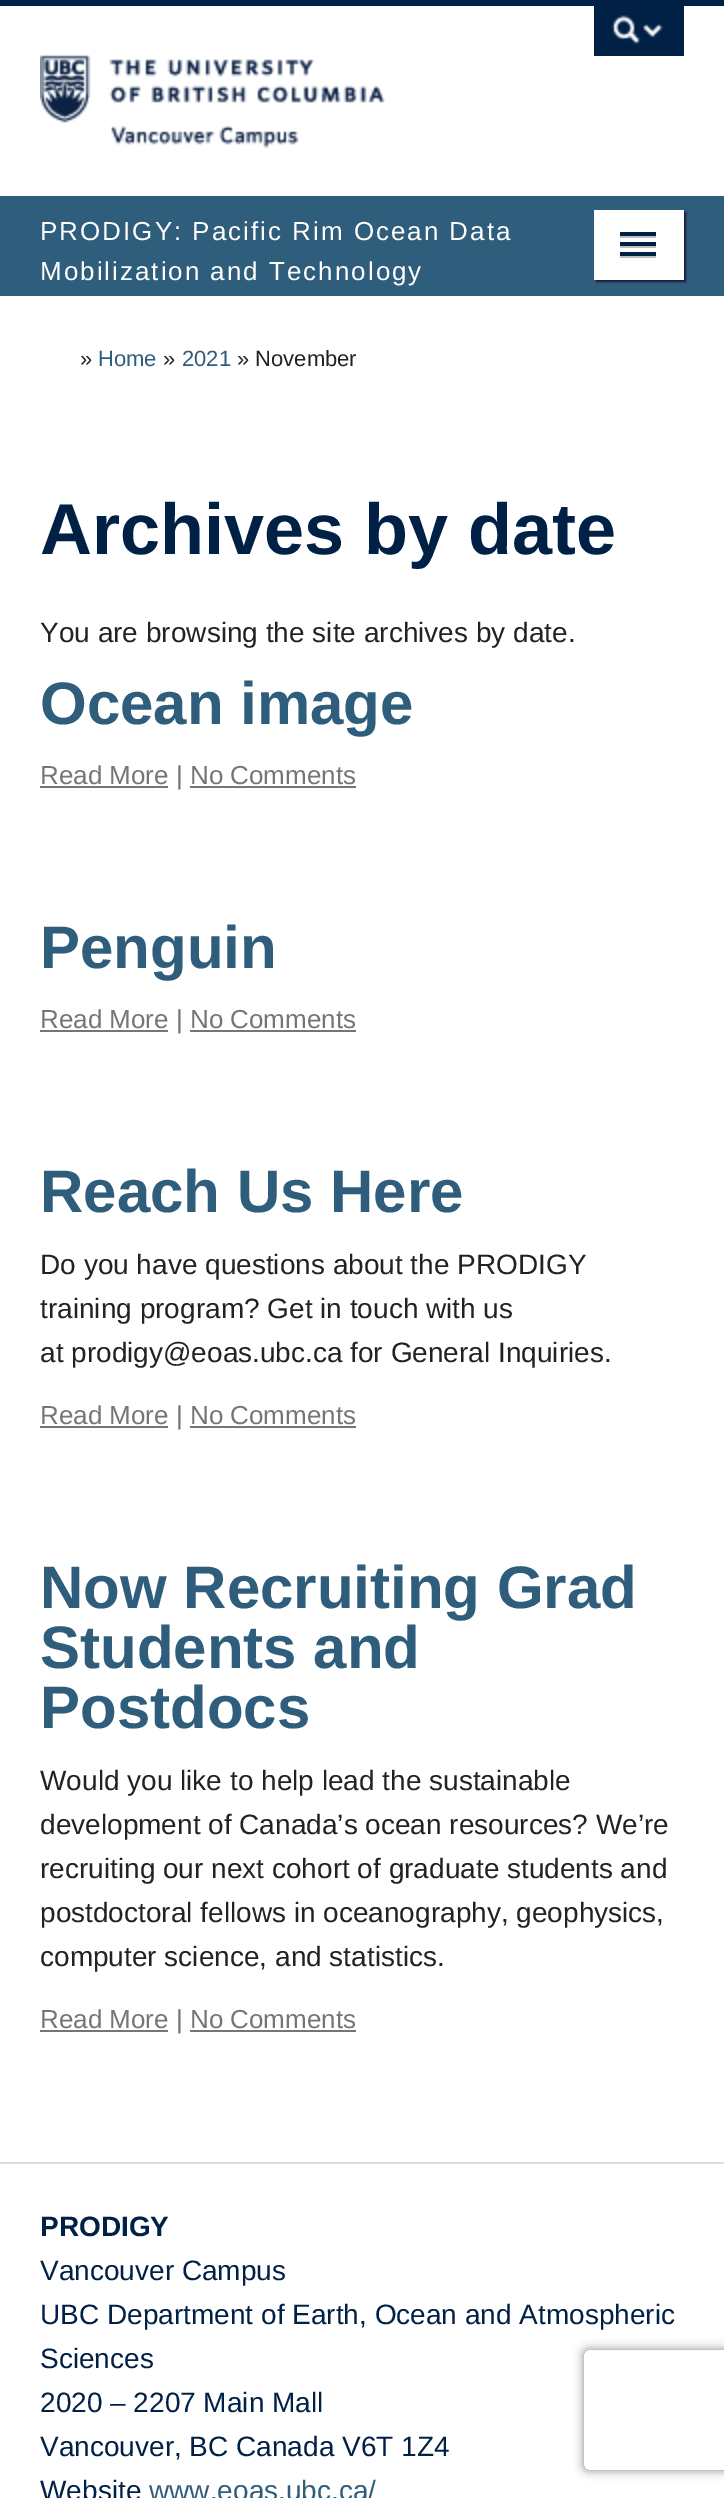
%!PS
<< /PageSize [724 2498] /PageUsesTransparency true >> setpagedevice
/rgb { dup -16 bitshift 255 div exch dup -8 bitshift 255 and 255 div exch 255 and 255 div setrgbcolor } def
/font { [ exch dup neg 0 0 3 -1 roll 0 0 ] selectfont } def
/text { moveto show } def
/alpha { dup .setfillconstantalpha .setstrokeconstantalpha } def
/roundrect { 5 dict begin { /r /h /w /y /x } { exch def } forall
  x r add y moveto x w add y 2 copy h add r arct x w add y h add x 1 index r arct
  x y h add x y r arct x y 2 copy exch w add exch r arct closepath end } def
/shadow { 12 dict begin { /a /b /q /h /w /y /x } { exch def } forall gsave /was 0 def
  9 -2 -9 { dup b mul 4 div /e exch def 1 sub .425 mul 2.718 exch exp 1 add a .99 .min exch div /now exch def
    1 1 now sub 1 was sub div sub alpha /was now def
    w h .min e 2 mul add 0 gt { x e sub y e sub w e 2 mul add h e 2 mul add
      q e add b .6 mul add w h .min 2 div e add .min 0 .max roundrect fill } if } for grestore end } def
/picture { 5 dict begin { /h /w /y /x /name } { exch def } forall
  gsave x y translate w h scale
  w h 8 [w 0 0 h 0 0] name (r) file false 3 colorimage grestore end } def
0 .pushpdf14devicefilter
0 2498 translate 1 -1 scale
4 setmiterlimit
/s1 { /LiberationSans-Regular 22 font 16#222222 rgb } def
/s2 { /LiberationSans-Regular 22 font 16#2F5D7C rgb } def
/s3 { /LiberationSans-Bold 72 font 16#002145 rgb } def
/s4 { /LiberationSans-Regular 28 font 16#222222 rgb } def
/s5 { /LiberationSans-Bold 60 font 16#2F5D7C rgb } def
/s6 { /LiberationSans-Regular 26 font 16#757575 rgb } def
/s7 { /LiberationSans-Bold 28 font 16#002145 rgb } def
/s8 { /LiberationSans-Regular 28 font 16#002145 rgb } def
/s9 { /LiberationSans-Regular 28 font 16#2F5D7C rgb } def
16#FFFFFF rgb
0 0 724 2498 rectfill
16#002145 rgb
0 0 724 6 rectfill
(pic1.raw) 40 55 345 68 picture
594 6 90 50 rectfill
(pic2.raw) 611 15 52 30 picture
(pic3.raw) 111 126 188 23 picture
16#2F5D7C rgb
0 196 724 100 rectfill
/LiberationSans-Regular 26 font
16#FFFFFF rgb
40 240 moveto 2 0 (PRODIGY: Pacific Rim Ocean Data) ashow
40 280 moveto 2 0 (Mobilization and Technology) ashow
16#191938 rgb
596 212 90 70 0 1 1 shadow
16#FFFFFF rgb
594 210 90 70 rectfill
16#BFBFBF rgb
620 236 36 2 rectfill
16#002145 rgb
620 232 36 4 rectfill
16#BFBFBF rgb
620 246 36 2 rectfill
16#002145 rgb
620 242 36 4 rectfill
16#BFBFBF rgb
620 256 36 2 rectfill
16#002145 rgb
620 252 36 4 rectfill
s1
(») 80 366 text
s2
(Home) 98 366 text
s1
(») 163 366 text
s2
(2021) 182 366 text
s1
(» November) 237 366 text
s3
(Archives by date) 40 554 text
s4
(You are browsing the site archives by date.) 40 642 text
s5
(Ocean image) 40 724 text
16#757575 rgb
40 786 128 2 rectfill
s6
(Read More | No Comments) 40 784 text
190 786 166 2 rectfill
s5
(Penguin) 40 968 text
16#757575 rgb
40 1030 128 2 rectfill
s6
(Read More | No Comments) 40 1028 text
190 1030 166 2 rectfill
s5
(Reach Us Here) 40 1212 text
s4
(Do you have questions about the PRODIGY) 40 1274 text
(training program? Get in touch with us) 40 1318 text
(at prodigy@eoas.ubc.ca for General Inquiries.) 40 1362 text
16#757575 rgb
40 1426 128 2 rectfill
s6
(Read More | No Comments) 40 1424 text
190 1426 166 2 rectfill
s5
(Now Recruiting Grad) 40 1608 text
(Students and) 40 1668 text
(Postdocs) 40 1728 text
s4
(Would you like to help lead the sustainable) 40 1790 text
(development of Canada’s ocean resources? We’re) 40 1834 text
(recruiting our next cohort of graduate students and) 40 1878 text
(postdoctoral fellows in oceanography, geophysics,) 40 1922 text
(computer science, and statistics.) 40 1966 text
16#757575 rgb
40 2030 128 2 rectfill
s6
(Read More | No Comments) 40 2028 text
190 2030 166 2 rectfill
16#D7E0E7 rgb
0 2162 724 2 rectfill
s7
(PRODIGY) 40 2236 text
s8
(Vancouver Campus) 40 2280 text
(UBC Department of Earth, Ocean and Atmospheric) 40 2324 text
(Sciences) 40 2368 text
(2020 – 2207 Main Mall) 40 2412 text
(Vancouver, BC Canada V6T 1Z4) 40 2456 text
(Website) 40 2500 text
s9
(www.eoas.ubc.ca/) 149 2500 text
gsave
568 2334 moveto 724 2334 lineto 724 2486 lineto 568 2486 lineto closepath 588 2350 moveto 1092 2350 lineto 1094 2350 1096 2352 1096 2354 curveto 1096 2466 lineto 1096 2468 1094 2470 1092 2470 curveto 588 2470 lineto 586 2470 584 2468 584 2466 curveto 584 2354 lineto 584 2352 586 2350 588 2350 curveto closepath eoclip newpath
16#808080 rgb
584 2350 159 120 4 5 1 shadow
grestore
.poppdf14devicefilter showpage
